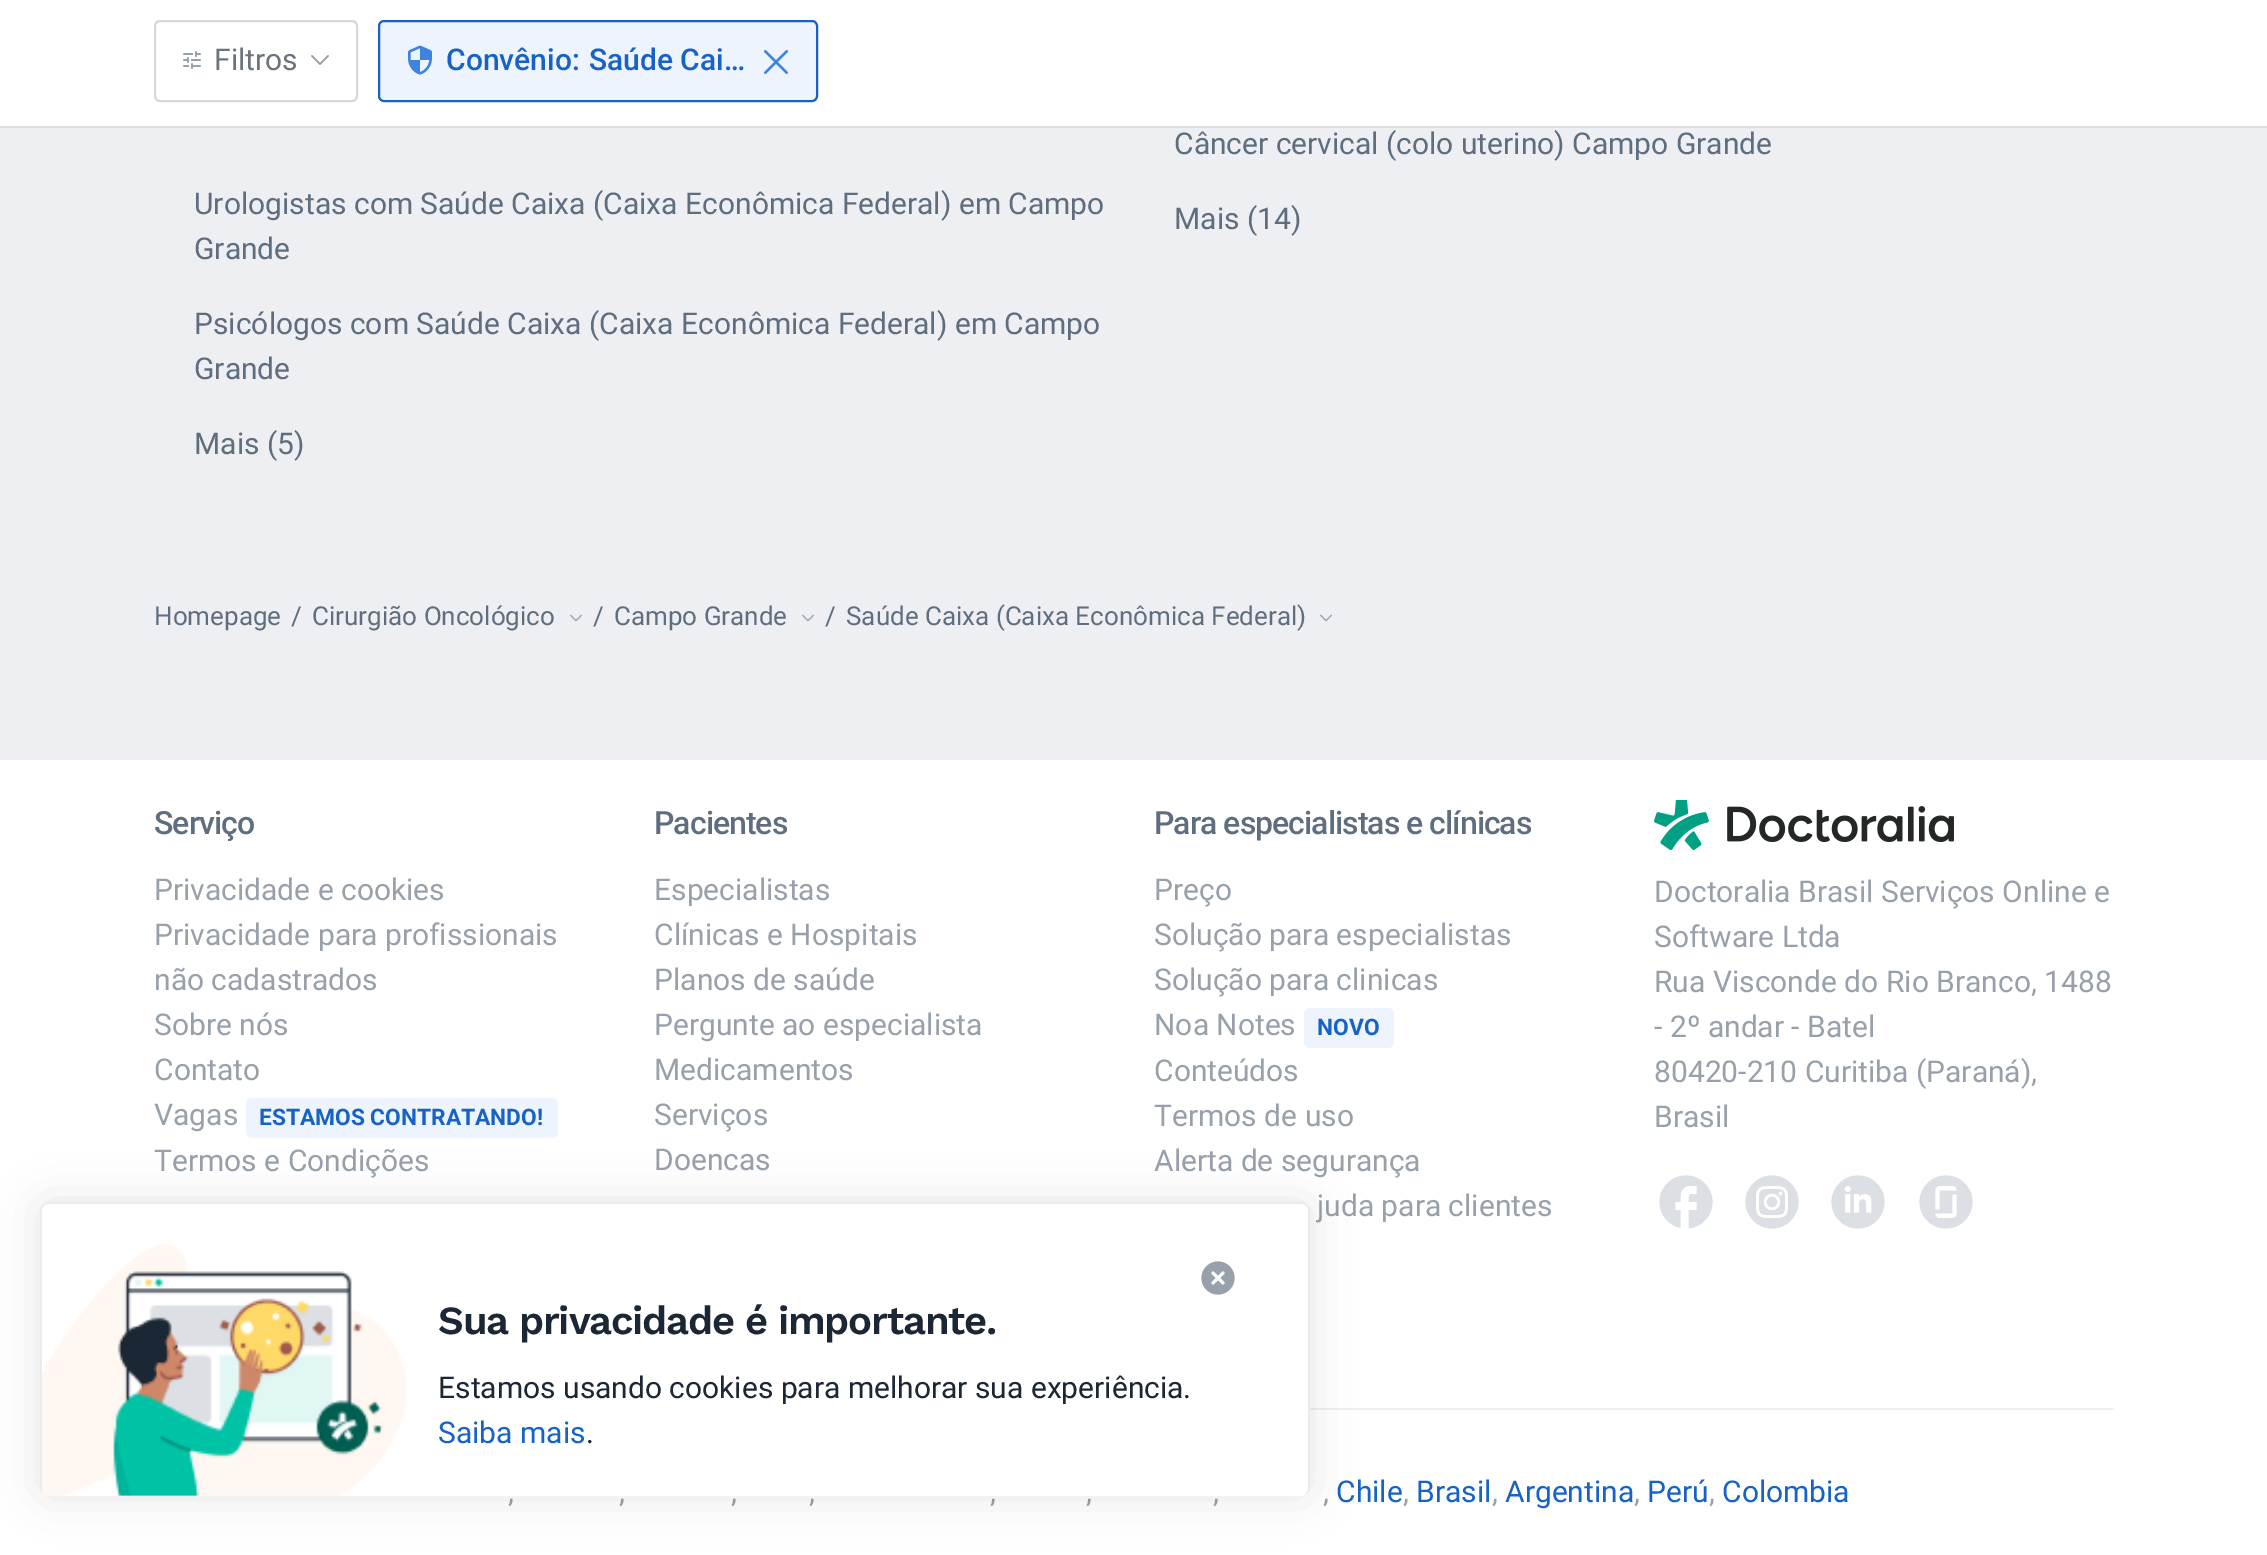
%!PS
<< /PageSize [2267 1555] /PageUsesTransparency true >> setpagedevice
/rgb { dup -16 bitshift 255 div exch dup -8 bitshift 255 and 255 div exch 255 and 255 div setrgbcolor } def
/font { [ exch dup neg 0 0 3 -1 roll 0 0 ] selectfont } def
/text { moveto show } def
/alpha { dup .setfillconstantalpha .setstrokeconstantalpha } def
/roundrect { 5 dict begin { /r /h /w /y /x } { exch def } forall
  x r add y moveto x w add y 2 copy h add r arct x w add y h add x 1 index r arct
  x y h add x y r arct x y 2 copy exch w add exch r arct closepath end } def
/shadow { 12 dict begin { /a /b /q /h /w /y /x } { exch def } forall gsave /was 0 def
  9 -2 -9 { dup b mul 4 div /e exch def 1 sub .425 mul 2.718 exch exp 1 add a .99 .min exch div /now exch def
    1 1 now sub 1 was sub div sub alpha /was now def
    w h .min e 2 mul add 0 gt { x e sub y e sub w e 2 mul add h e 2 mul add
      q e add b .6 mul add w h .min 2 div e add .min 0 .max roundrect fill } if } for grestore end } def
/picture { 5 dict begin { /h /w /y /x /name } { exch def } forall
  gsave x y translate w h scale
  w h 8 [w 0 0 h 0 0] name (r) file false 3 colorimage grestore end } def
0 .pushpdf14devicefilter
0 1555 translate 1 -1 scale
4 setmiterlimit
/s1 { /Roboto-Regular 30 font 16#6B737B rgb } def
/s2 { /Roboto-Medium 30 font 16#1662C6 rgb } def
/s3 { /Roboto-Regular 30 font 16#5F6E7F rgb } def
/s4 { /Roboto-Regular 26 font 16#5F6E7F rgb } def
/s5 { /Roboto-Regular 30 font 16#98A1AB rgb } def
/s6 { /Roboto-Bold 22.75 font 16#1662C6 rgb } def
/s7 { /Roboto-Regular 30 font 16#1662C6 rgb } def
/s8 { /Roboto-Regular 30 font 16#1B2734 rgb } def
16#EDEFF2 rgb
0 0 2267 1555 rectfill
16#FFFFFF rgb
0 0 2267 126 rectfill
16#DCDFE3 rgb
0 126 2267 2 rectfill
16#D5D8DD rgb
2 setlinewidth
155 21 202 80 5 roundrect stroke
(pic1.raw) 183 51 18 18 picture
s1
(Filtros) 214 70 text
(pic2.raw) 311 55 18 10 picture
16#EEF4FD rgb
379 21 438 80 5 roundrect gsave fill grestore
16#1662C6 rgb
stroke
(pic3.raw) 408 45 24 30 picture
s2
(Convênio:) 446 70 text
(Saúde Cai…) 589 70 text
(pic4.raw) 764 50 24 24 picture
s3
(Urologistas com Saúde Caixa \(Caixa Econômica Federal\) em Campo) 194 214 text
(Grande) 194 259 text
(Psicólogos com Saúde Caixa \(Caixa Econômica Federal\) em Campo) 194 334 text
(Grande) 194 379 text
(Mais \(5\)) 194 454 text
(Câncer cervical \(colo uterino\) Campo Grande) 1174 154 text
(Mais \(14\)) 1174 229 text
s4
(Homepage) 154 625 text
(/) 291 625 text
(Cirurgião Oncológico) 312 625 text
(pic5.raw) 570 614 12 8 picture
(/) 593 625 text
(Campo Grande) 614 625 text
(pic5.raw) 802 614 12 8 picture
(/) 825 625 text
(Saúde Caixa \(Caixa Econômica Federal\)) 846 625 text
(pic5.raw) 1320 614 12 8 picture
16#FFFFFF rgb
0 760 2267 795 rectfill
/Roboto-Medium 32 font
16#5F6E7F rgb
154 834 moveto -0.95 0 (Serviço) ashow
s5
(Privacidade e cookies) 154 900 text
(Privacidade para profissionais) 154 945 text
(não cadastrados) 154 990 text
(Sobre nós) 154 1035 text
(Contato) 154 1080 text
(Vagas) 154 1125 text
16#EEF4FD rgb
246 1098 312 40 6 roundrect fill
s6
(ESTAMOS CONTRATANDO!) 259 1125 text
s5
(Termos e Condições) 154 1171 text
/Roboto-Medium 32 font
16#5F6E7F rgb
654 834 moveto -0.95 0 (Pacientes) ashow
s5
(Especialistas) 654 900 text
(Clínicas e Hospitais) 654 945 text
(Planos de saúde) 654 990 text
(Pergunte ao especialista) 654 1035 text
(Medicamentos) 654 1080 text
(Serviços) 654 1125 text
(Doencas) 654 1170 text
/Roboto-Medium 32 font
16#5F6E7F rgb
1154 834 moveto -0.95 0 (Para especialistas e clínicas) ashow
s5
(Preço) 1154 900 text
(Solução para especialistas) 1154 945 text
(Solução para clinicas) 1154 990 text
(Noa Notes) 1154 1035 text
16#EEF4FD rgb
1304 1008 90 40 6 roundrect fill
s6
(NOVO) 1317 1035 text
s5
(Conteúdos) 1154 1081 text
(Termos de uso) 1154 1126 text
(Alerta de segurança) 1154 1171 text
(juda para clientes) 1317 1216 text
(pic6.raw) 1654 800 300 50 picture
(Doctoralia Brasil Serviços Online e) 1654 902 text
(Software Ltda) 1654 947 text
(Rua Visconde do Rio Branco, 1488) 1654 992 text
(- 2º andar - Batel) 1654 1037 text
(80420-210 Curitiba \(Paraná\),) 1654 1082 text
(Brasil) 1654 1127 text
(pic7.raw) 1659 1175 54 54 picture
(pic8.raw) 1745 1175 54 54 picture
(pic9.raw) 1831 1175 54 54 picture
(pic10.raw) 1919 1175 54 54 picture
16#EDEFF2 rgb
1310 1408 804 2 rectfill
s5
(,) 508 1502 text
(,) 619 1502 text
(,) 731 1502 text
(,) 809 1502 text
(,) 990 1502 text
(,) 1086 1502 text
(,) 1213 1502 text
(,) 1323 1502 text
s7
(Chile) 1336 1502 text
s5
(,) 1403 1502 text
s7
(Brasil) 1416 1502 text
s5
(,) 1492 1502 text
s7
(Argentina) 1505 1502 text
s5
(,) 1634 1502 text
s7
(Perú) 1647 1502 text
s5
(,) 1709 1502 text
s7
(Colombia) 1722 1502 text
16#000000 rgb
40 1202 1270 294 8 22 0.1 shadow
16#FFFFFF rgb
40 1202 1270 294 8 roundrect fill
0.08 alpha
16#000000 rgb
48 1202 moveto 1302 1202 lineto 1306 1202 1310 1206 1310 1210 curveto 1310 1488 lineto 1310 1492 1306 1496 1302 1496 curveto 48 1496 lineto 44 1496 40 1492 40 1488 curveto 40 1210 lineto 40 1206 44 1202 48 1202 curveto closepath 48 1204 moveto 1302 1204 lineto 1305 1204 1308 1207 1308 1210 curveto 1308 1488 lineto 1308 1492 1305 1496 1302 1496 curveto 48 1496 lineto 45 1496 42 1492 42 1488 curveto 42 1210 lineto 42 1207 45 1204 48 1204 curveto closepath eofill
1 alpha
(pic11.raw) 42 1244 365 252 picture
(pic12.raw) 1201 1261 34 34 picture
/WorkSans-SemiBold 40 font
16#1B2734 rgb
438 1334 moveto -1.2 0 (Sua privacidade é importante.) ashow
s8
(Estamos usando cookies para melhorar sua experiência.) 438 1398 text
s7
(Saiba mais) 438 1443 text
s8
(.) 586 1443 text
.poppdf14devicefilter showpage
